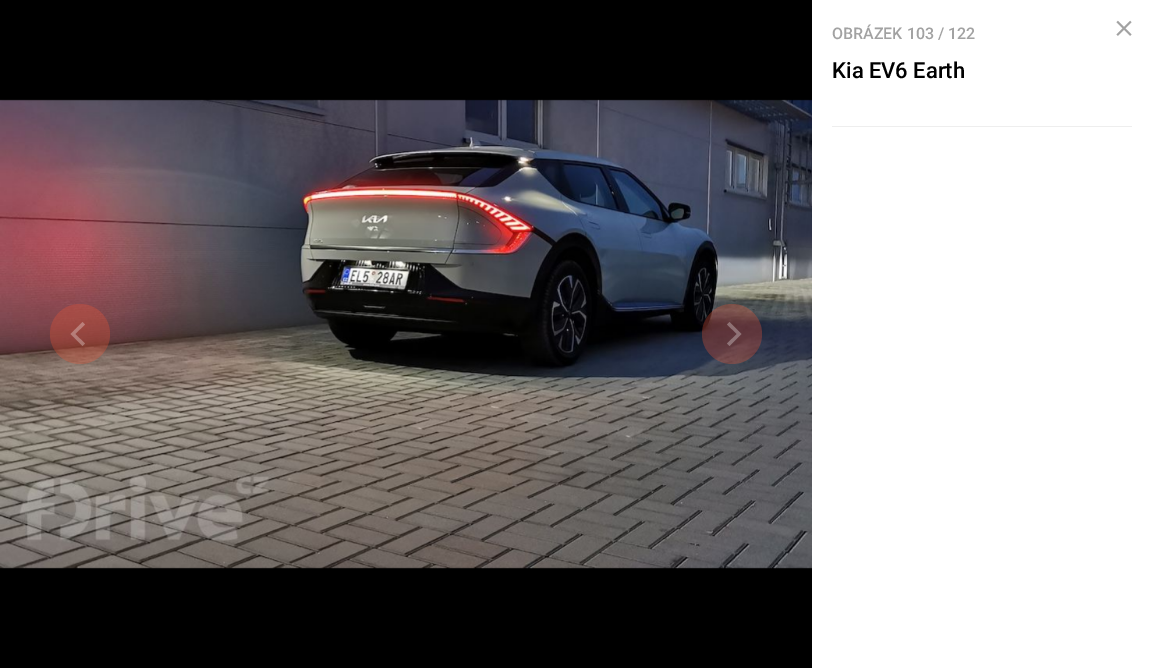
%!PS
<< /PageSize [1152 668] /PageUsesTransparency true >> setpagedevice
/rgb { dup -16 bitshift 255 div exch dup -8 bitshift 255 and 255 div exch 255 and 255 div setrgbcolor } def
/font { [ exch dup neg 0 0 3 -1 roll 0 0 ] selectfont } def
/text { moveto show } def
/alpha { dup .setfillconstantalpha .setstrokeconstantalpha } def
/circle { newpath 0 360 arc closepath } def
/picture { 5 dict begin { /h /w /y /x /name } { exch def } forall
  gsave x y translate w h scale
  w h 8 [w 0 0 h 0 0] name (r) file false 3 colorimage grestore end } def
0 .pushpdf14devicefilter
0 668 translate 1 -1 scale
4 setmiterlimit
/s1 { /Roboto-Medium 16 font 16#A2A2A2 rgb } def
/s2 { /Roboto-Medium 22 font 16#000000 rgb } def
16#000000 rgb
0 0 1152 668 rectfill
16#FFFFFF rgb
812 0 340 668 rectfill
s1
(OBRÁZEK 103 / 122) 832 39 text
s2
(Kia EV6 Earth) 832 78 text
16#EEEEEE rgb
832 126 300 1 rectfill
(pic1.raw) 1116 20 16 16 picture
(pic2.raw) 0 99 812 470 picture
0.3 alpha
16#F15635 rgb
80 334 30 circle fill
16#FFFFFF rgb
70.5 334 moveto 82.5 346 lineto 85 343.5 lineto 75 334 lineto 85 324.5 lineto 82.5 322 lineto closepath fill
16#F15635 rgb
732 334 30 circle fill
16#FFFFFF rgb
741.5 334 moveto 729.5 322 lineto 727 324.5 lineto 737 334 lineto 727 343.5 lineto 729.5 346 lineto closepath fill
.poppdf14devicefilter showpage
